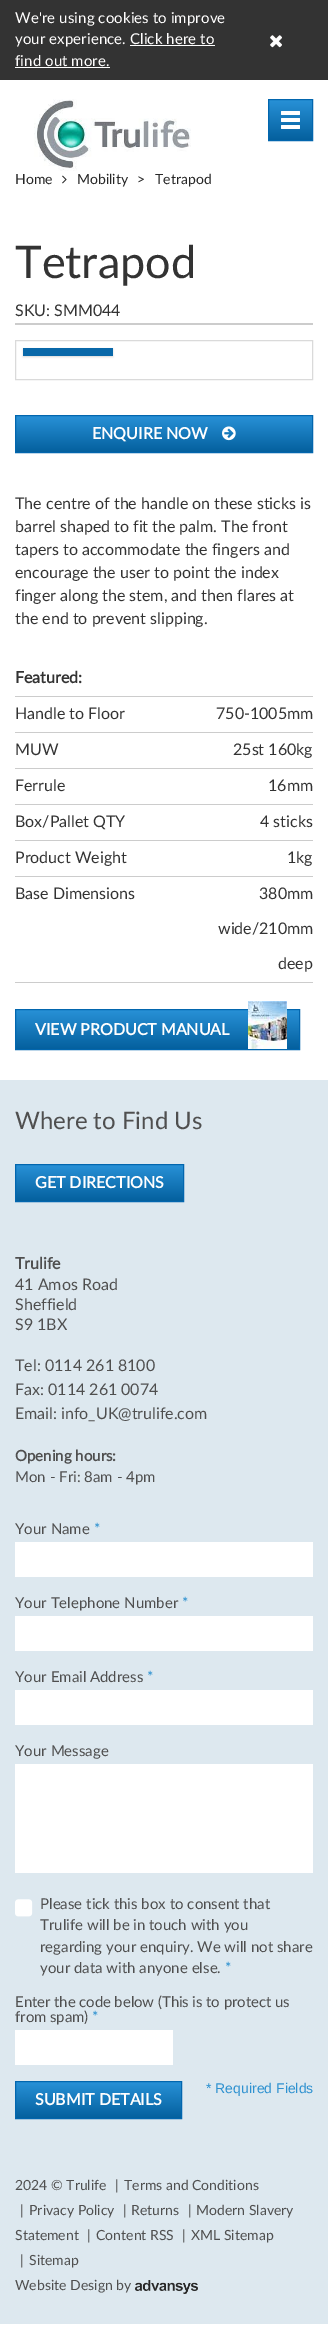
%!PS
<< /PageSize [328 2327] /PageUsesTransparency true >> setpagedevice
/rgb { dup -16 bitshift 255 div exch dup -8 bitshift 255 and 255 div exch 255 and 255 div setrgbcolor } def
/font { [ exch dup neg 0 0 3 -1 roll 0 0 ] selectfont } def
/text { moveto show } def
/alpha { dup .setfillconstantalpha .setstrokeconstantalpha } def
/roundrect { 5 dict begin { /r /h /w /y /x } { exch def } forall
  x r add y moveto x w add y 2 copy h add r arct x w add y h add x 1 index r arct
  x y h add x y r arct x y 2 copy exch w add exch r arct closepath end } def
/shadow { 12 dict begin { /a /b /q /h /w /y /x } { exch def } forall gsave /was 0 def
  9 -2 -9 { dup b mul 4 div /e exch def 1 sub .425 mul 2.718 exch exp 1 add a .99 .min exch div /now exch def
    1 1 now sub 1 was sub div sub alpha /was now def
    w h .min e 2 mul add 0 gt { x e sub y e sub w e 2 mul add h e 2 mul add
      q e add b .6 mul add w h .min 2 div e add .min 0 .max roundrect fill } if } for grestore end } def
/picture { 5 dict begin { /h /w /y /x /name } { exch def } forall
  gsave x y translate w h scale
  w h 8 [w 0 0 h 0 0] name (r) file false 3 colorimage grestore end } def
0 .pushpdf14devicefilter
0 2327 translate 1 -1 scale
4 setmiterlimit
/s1 { /Lato-Regular 14 font 16#272727 rgb } def
/s2 { /Lato-Regular 45 font 16#333333 rgb } def
/s3 { /Lato-Regular 16 font 16#333333 rgb } def
/s4 { /Lato-Bold 16 font 16#FFFEFE rgb } def
/s5 { /Lato-Bold 16 font 16#333333 rgb } def
/s6 { /Lato-Regular 24 font 16#4F4F4F rgb } def
/s7 { /Lato-Bold 16 font 16#4F4F4F rgb } def
/s8 { /Lato-Regular 16 font 16#4F4F4F rgb } def
/s9 { /Lato-Bold 15 font 16#4F4F4F rgb } def
/s10 { /Lato-Regular 15 font 16#4F4F4F rgb } def
/s11 { /Lato-Regular 15 font 16#2E91D0 rgb } def
/s12 { /LiberationSans-Regular 14 font 16#2E91D0 rgb } def
/s13 { /Lato-Regular 14 font 16#4F4F4F rgb } def
16#FFFFFF rgb
0 0 328 2327 rectfill
16#333333 rgb
0 0 328 80 rectfill
/Lato-Regular 15 font
16#FFFEFE rgb
15 23 moveto 0.1 0 (We're using cookies to improve) ashow
15 44 moveto 0.1 0 (your experience.) ashow
130 44 moveto 0.1 0 (Click here to) ashow
16#FFFFFF rgb
130 45 85 1 rectfill
16#FFFEFE rgb
15 66 moveto 0.1 0 (find out more.) ashow
16#FFFFFF rgb
15 67 95 1 rectfill
(pic1.raw) 270 35 12 13 picture
(pic2.raw) 34 99 157 72 picture
gsave 269 100 moveto 312 100 lineto 312 140 lineto 269 140 lineto closepath clip newpath
<< /ShadingType 2 /ColorSpace /DeviceRGB /Coords [291 140 291 100] /Extend [true true] /Function << /FunctionType 2 /Domain [0 1] /C0 [0.016 0.376 0.62] /C1 [0.157 0.569 0.843] /N 1 >> >> shfill grestore
16#0266AE rgb
268.5 99.5 44 41 rectstroke
16#FFFFFF rgb
281 111 19 4 1 roundrect fill
281 118 19 4 1 roundrect fill
281 125 19 4 1 roundrect fill
s1
(Home) 15 184 text
(pic3.raw) 62 175 5 9 picture
(Mobility) 77 184 text
(>) 137 184 text
(Tetrapod) 155 184 text
s2
(Tetrapod) 15 278 text
s3
(SKU: SMM044) 15 316 text
16#CCCCCC rgb
15 323 298 2 rectfill
16#DADADA rgb
15.5 340.5 297 39 rectstroke
16#000000 rgb
23 349 90 8 0 1 0.15 shadow
16#0968A9 rgb
23 348 90 8 rectfill
gsave 16 416 moveto 312 416 lineto 312 452 lineto 16 452 lineto closepath clip newpath
<< /ShadingType 2 /ColorSpace /DeviceRGB /Coords [164 452 164 416] /Extend [true true] /Function << /FunctionType 2 /Domain [0 1] /C0 [0.016 0.376 0.62] /C1 [0.157 0.569 0.843] /N 1 >> >> shfill grestore
16#0266AE rgb
15.5 415.5 297 37 rectstroke
s4
(ENQUIRE NOW) 92 439 text
(pic4.raw) 222 426 14 15 picture
s3
(The centre of the handle on these sticks is) 15 509 text
(barrel shaped to fit the palm. The front) 15 532 text
(tapers to accommodate the fingers and) 15 555 text
(encourage the user to point the index) 15 578 text
(finger along the stem, and then flares at) 15 601 text
(the end to prevent slipping.) 15 624 text
16#CCCCCC rgb
15 696 298 1 rectfill
s5
(Featured:) 15 683 text
16#CCCCCC rgb
15 732 298 1 rectfill
s3
(Handle to Floor) 15 719 text
(750-1005mm) 216 719 text
16#CCCCCC rgb
15 768 298 1 rectfill
s3
(MUW) 15 755 text
(25st 160kg) 233 755 text
16#CCCCCC rgb
15 804 298 1 rectfill
s3
(Ferrule) 15 791 text
(16mm) 268 791 text
16#CCCCCC rgb
15 840 298 1 rectfill
s3
(Box/Pallet QTY) 15 827 text
(4 sticks) 260 827 text
16#CCCCCC rgb
15 876 298 1 rectfill
s3
(Product Weight) 15 863 text
(1kg) 287 863 text
16#CCCCCC rgb
15 982 298 1 rectfill
s3
(Base Dimensions) 15 899 text
(380mm) 259 899 text
(wide/210mm) 218 934 text
(deep) 278 969 text
gsave 16 1010 moveto 299 1010 lineto 299 1049 lineto 16 1049 lineto closepath clip newpath
<< /ShadingType 2 /ColorSpace /DeviceRGB /Coords [158 1049 158 1010] /Extend [true true] /Function << /FunctionType 2 /Domain [0 1] /C0 [0.016 0.376 0.62] /C1 [0.157 0.569 0.843] /N 1 >> >> shfill grestore
16#0266AE rgb
15.5 1009.5 284 40 rectstroke
s4
(VIEW PRODUCT MANUAL) 35 1035 text
(pic5.raw) 248 1001 39 48 picture
16#DDE8EF rgb
0 1080 328 1244 rectfill
s6
(Where to Find Us) 15 1129 text
gsave 16 1165 moveto 183 1165 lineto 183 1201 lineto 16 1201 lineto closepath clip newpath
<< /ShadingType 2 /ColorSpace /DeviceRGB /Coords [100 1201 100 1165] /Extend [true true] /Function << /FunctionType 2 /Domain [0 1] /C0 [0.016 0.376 0.62] /C1 [0.157 0.569 0.843] /N 1 >> >> shfill grestore
16#0266AE rgb
15.5 1164.5 168 37 rectstroke
s4
(GET DIRECTIONS) 35 1188 text
s7
(Trulife) 15 1269 text
s8
(41 Amos Road) 15 1290 text
(Sheffield) 15 1310 text
(S9 1BX) 15 1330 text
(Tel: 0114 261 8100) 15 1371 text
(Fax: 0114 261 0074) 15 1395 text
(Email: info_UK@trulife.com) 15 1419 text
s9
(Opening hours:) 15 1461 text
s10
(Mon - Fri: 8am - 4pm) 15 1482 text
(Your Name) 15 1534 text
s11
(*) 94 1534 text
16#FFFFFF rgb
15 1542 298 35 rectfill
s10
(Your Telephone Number) 15 1608 text
s11
(*) 182 1608 text
16#FFFFFF rgb
15 1616 298 35 rectfill
s10
(Your Email Address) 15 1682 text
s11
(*) 147 1682 text
16#FFFFFF rgb
15 1690 298 35 rectfill
s10
(Your Message) 15 1756 text
16#FFFFFF rgb
15 1764 298 109 rectfill
(pic6.raw) 15 1899 18 18 picture
s10
(Please tick this box to consent that) 40 1909 text
(Trulife will be in touch with you) 40 1930 text
(regarding your enquiry. We will not share) 40 1952 text
(your data with anyone else.) 40 1973 text
s11
(*) 225 1973 text
16#4F4F4F rgb
15 2007 moveto -0.1 0 (Enter the code below \(This is to protect us) ashow
15 2022 moveto -0.1 0 (from spam\)) ashow
16#2E91D0 rgb
92 2022 moveto -0.1 0 (*) ashow
16#FFFFFF rgb
15 2030 158 35 rectfill
s12
(* Required Fields) 206 2093 text
gsave 16 2082 moveto 181 2082 lineto 181 2118 lineto 16 2118 lineto closepath clip newpath
<< /ShadingType 2 /ColorSpace /DeviceRGB /Coords [99 2118 99 2082] /Extend [true true] /Function << /FunctionType 2 /Domain [0 1] /C0 [0.016 0.376 0.62] /C1 [0.157 0.569 0.843] /N 1 >> >> shfill grestore
16#0266AE rgb
15.5 2081.5 166 37 rectstroke
s4
(SUBMIT DETAILS) 35 2105 text
s13
(2024 © Trulife) 15 2190 text
(|) 115 2190 text
(Terms and Conditions) 124 2190 text
(|) 20 2215 text
(Privacy Policy) 29 2215 text
(|) 123 2215 text
(Returns) 131 2215 text
(|) 188 2215 text
(Modern Slavery) 196 2215 text
(Statement) 15 2240 text
(|) 87 2240 text
(Content RSS) 96 2240 text
(|) 182 2240 text
(XML Sitemap) 191 2240 text
(|) 20 2265 text
(Sitemap) 29 2265 text
(Website Design by) 15 2290 text
(pic7.raw) 135 2280 63 14 picture
.poppdf14devicefilter showpage
